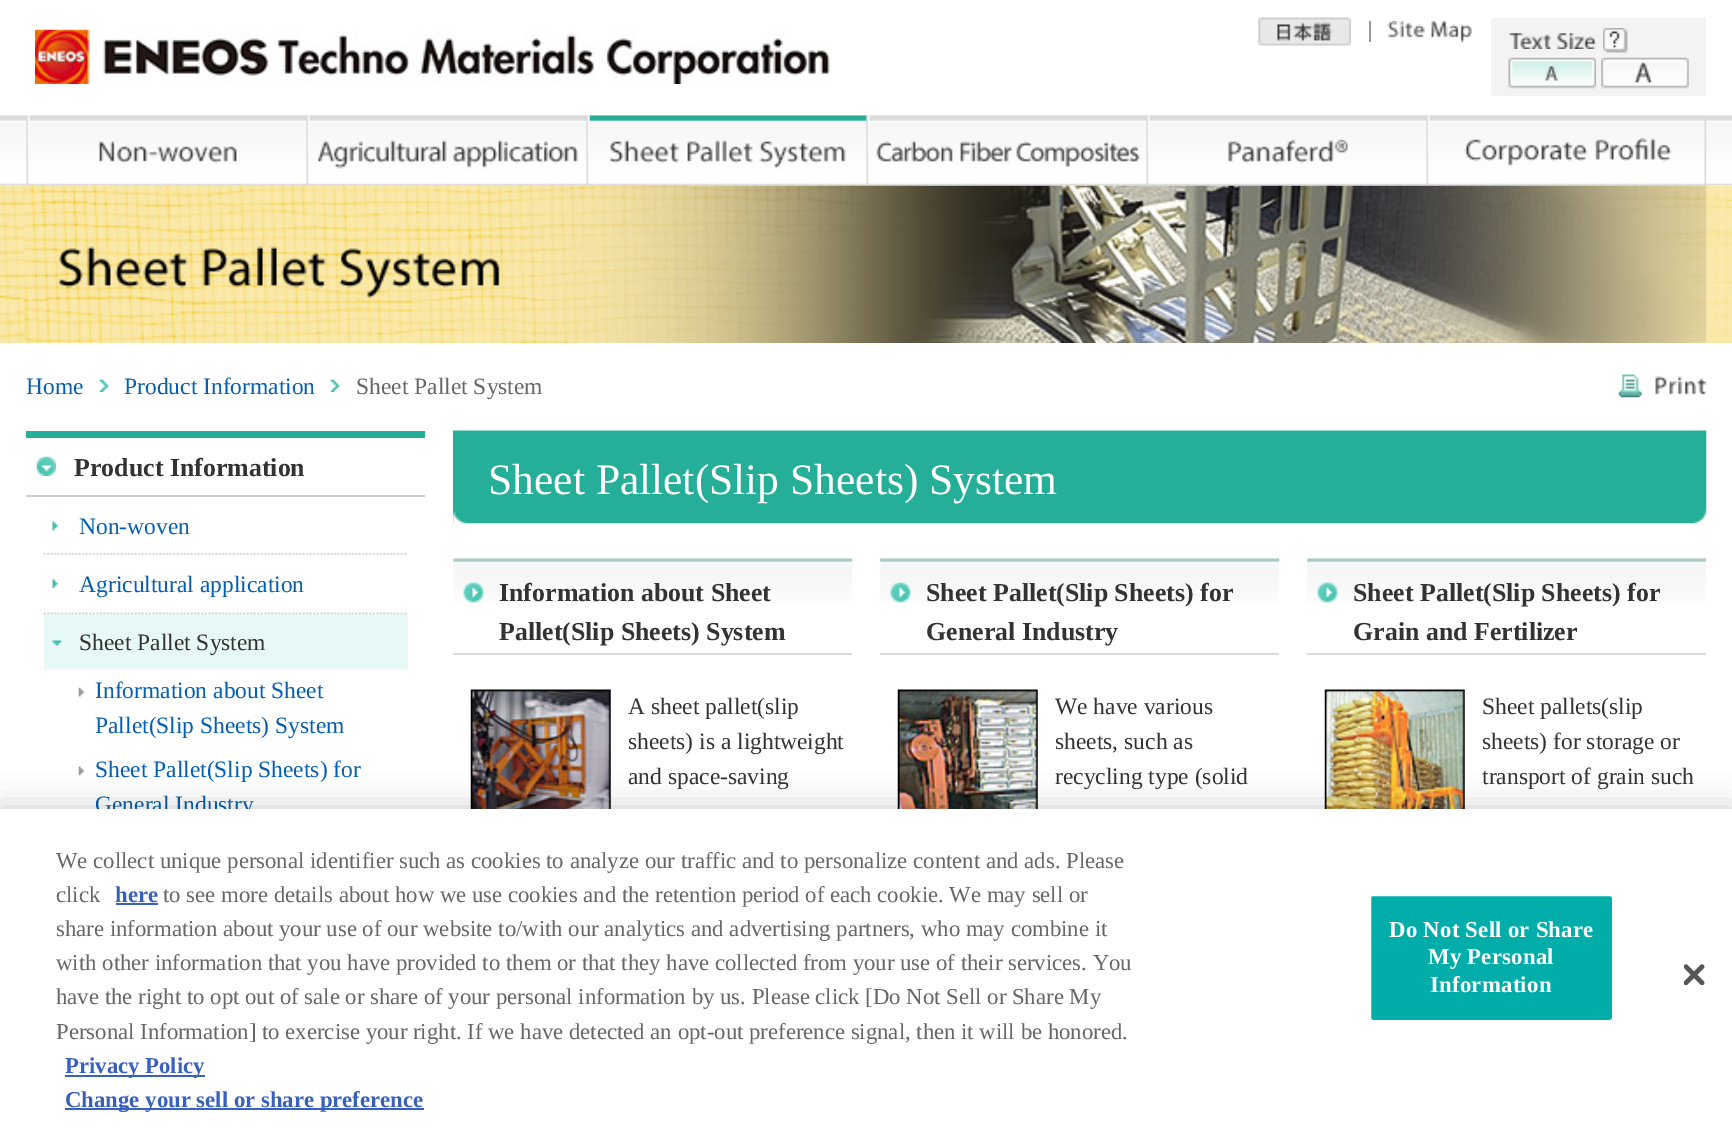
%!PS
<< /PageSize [1732 1134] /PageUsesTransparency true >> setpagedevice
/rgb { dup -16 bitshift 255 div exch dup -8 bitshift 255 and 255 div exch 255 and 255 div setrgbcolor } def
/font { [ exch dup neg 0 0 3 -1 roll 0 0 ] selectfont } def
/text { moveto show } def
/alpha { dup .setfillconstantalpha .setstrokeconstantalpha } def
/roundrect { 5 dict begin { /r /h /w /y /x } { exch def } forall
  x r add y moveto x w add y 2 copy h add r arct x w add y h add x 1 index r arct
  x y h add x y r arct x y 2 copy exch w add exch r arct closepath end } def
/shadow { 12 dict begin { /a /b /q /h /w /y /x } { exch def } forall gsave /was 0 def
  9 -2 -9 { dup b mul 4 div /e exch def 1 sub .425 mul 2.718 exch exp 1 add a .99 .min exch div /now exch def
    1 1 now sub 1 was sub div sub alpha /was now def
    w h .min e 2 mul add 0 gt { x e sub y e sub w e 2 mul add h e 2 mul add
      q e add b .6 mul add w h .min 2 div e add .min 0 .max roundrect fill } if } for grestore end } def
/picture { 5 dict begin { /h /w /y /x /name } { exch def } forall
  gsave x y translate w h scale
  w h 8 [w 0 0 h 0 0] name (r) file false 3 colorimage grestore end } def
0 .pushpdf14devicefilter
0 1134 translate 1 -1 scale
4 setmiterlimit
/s1 { /LiberationSerif-Regular 23.5 font 16#045EB1 rgb } def
/s2 { /LiberationSerif-Regular 23.5 font 16#666666 rgb } def
/s3 { /LiberationSerif-Bold 25.9 font 16#333333 rgb } def
/s4 { /LiberationSerif-Regular 23.5 font 16#333333 rgb } def
/s5 { /LiberationSerif-Regular 43.5 font 16#FFFFFF rgb } def
/s6 { /LiberationSerif-Regular 22.75 font 16#666666 rgb } def
/s7 { /LiberationSerif-Bold 22.75 font 16#3860BE rgb } def
16#FFFFFF rgb
0 0 1732 1134 rectfill
(pic1.raw) 0 115 1732 71 picture
(pic2.raw) 35 29 795 55 picture
(pic3.raw) 1258 17 93 29 picture
16#999999 rgb
1369 21 2 21 rectfill
(pic4.raw) 1387 21 85 21 picture
(pic5.raw) 1491 17 215 79 picture
(pic6.raw) 1491 94 2 2 picture
(pic7.raw) 1508 33 88 16 picture
(pic8.raw) 1603 28 25 25 picture
(pic9.raw) 1508 57 88 32 picture
(pic10.raw) 1601 57 88 32 picture
(pic17.raw) 0 185 1732 158 picture
(pic18.raw) 26 185 1681 158 picture
(pic11.raw) 26 115 284 71 picture
(pic12.raw) 309 115 281 71 picture
(pic13.raw) 589 115 281 71 picture
(pic14.raw) 869 115 281 71 picture
(pic15.raw) 1149 115 281 71 picture
(pic16.raw) 1429 115 278 71 picture
s1
(Home) 26 394 text
(pic19.raw) 99 379 10 13 picture
(Product Information) 124 394 text
(pic20.raw) 330 379 10 13 picture
s2
(Sheet Pallet System) 356 394 text
(pic21.raw) 1618 374 89 24 picture
16#25AF99 rgb
26 431 399 7 rectfill
16#CCCCCC rgb
26 495 399 2 rectfill
(pic22.raw) 36 456 20 20 picture
s3
(Product Information) 74 476 text
(pic23.raw) 52 521 6 10 picture
s1
(Non-woven) 79 534 text
(pic24.raw) 43 553 364 2 picture
(pic25.raw) 52 579 6 9 picture
(Agricultural application) 79 592 text
16#E6F9F6 rgb
44 613 364 56 rectfill
(pic26.raw) 43 612 365 3 picture
(pic27.raw) 52 640 10 6 picture
s4
(Sheet Pallet System) 79 650 text
(pic28.raw) 78 687 6 10 picture
s1
(Information about Sheet) 95 698 text
(Pallet\(Slip Sheets\) System) 95 733 text
(pic29.raw) 78 766 6 10 picture
(Sheet Pallet\(Slip Sheets\) for) 95 777 text
(General Industry) 95 812 text
(pic30.raw) 453 430 1254 94 picture
s5
(Sheet Pallet\(Slip Sheets\) System) 488 494 text
(pic31.raw) 453 558 400 45 picture
16#DBDBDB rgb
453 653 399 2 rectfill
s3
(Information about Sheet) 499 601 text
(Pallet\(Slip Sheets\) System) 499 640 text
(pic32.raw) 470 689 141 120 picture
s4
(A sheet pallet\(slip) 628 714 text
(sheets\) is a lightweight) 628 749 text
(and space-saving) 628 784 text
(pic33.raw) 880 558 400 45 picture
16#DBDBDB rgb
880 653 399 2 rectfill
s3
(Sheet Pallet\(Slip Sheets\) for) 926 601 text
(General Industry) 926 640 text
(pic34.raw) 897 689 141 120 picture
s4
(We have various) 1055 714 text
(sheets, such as) 1055 749 text
(recycling type \(solid) 1055 784 text
(pic35.raw) 1307 558 400 45 picture
16#DBDBDB rgb
1307 653 399 2 rectfill
s3
(Sheet Pallet\(Slip Sheets\) for) 1353 601 text
(Grain and Fertilizer) 1353 640 text
(pic36.raw) 1324 689 141 120 picture
s4
(Sheet pallets\(slip) 1482 714 text
(sheets\) for storage or) 1482 749 text
(transport of grain such) 1482 784 text
16#000000 rgb
0 809 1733 325 0 16 0.2 shadow
16#FFFFFF rgb
0 809 1732 325 rectfill
s6
(We collect unique personal identifier such as cookies to analyze our traffic and to personalize content and ads. Please) 56 868 text
(click) 56 902 text
s7
(here) 115 902 text
116 903 42 2 rectfill
s6
(to see more details about how we use cookies and the retention period of each cookie. We may sell or) 163 902 text
(share information about your use of our website to/with our analytics and advertising partners, who may combine it) 56 936 text
(with other information that you have provided to them or that they have collected from your use of their services. You) 56 970 text
(have the right to opt out of sale or share of your personal information by us. Please click [Do Not Sell or Share My) 56 1004 text
(Personal Information] to exercise your right. If we have detected an opt-out preference signal, then it will be honored.) 56 1039 text
16#3860BE rgb
65 1075 140 2 rectfill
s7
(Privacy Policy) 65 1073 text
65 1108 359 2 rectfill
(Change your sell or share preference) 65 1107 text
16#00ADA9 rgb
1370 895 243 126 3 roundrect gsave fill grestore
16#FFFFFF rgb
2 setlinewidth
stroke
1389 937 moveto 0.25 0 (Do Not Sell or Share) ashow
1428 964 moveto 0.25 0 (My Personal) ashow
1430 992 moveto 0.25 0 (Information) ashow
(pic37.raw) 1684 964 21 21 picture
.poppdf14devicefilter showpage
